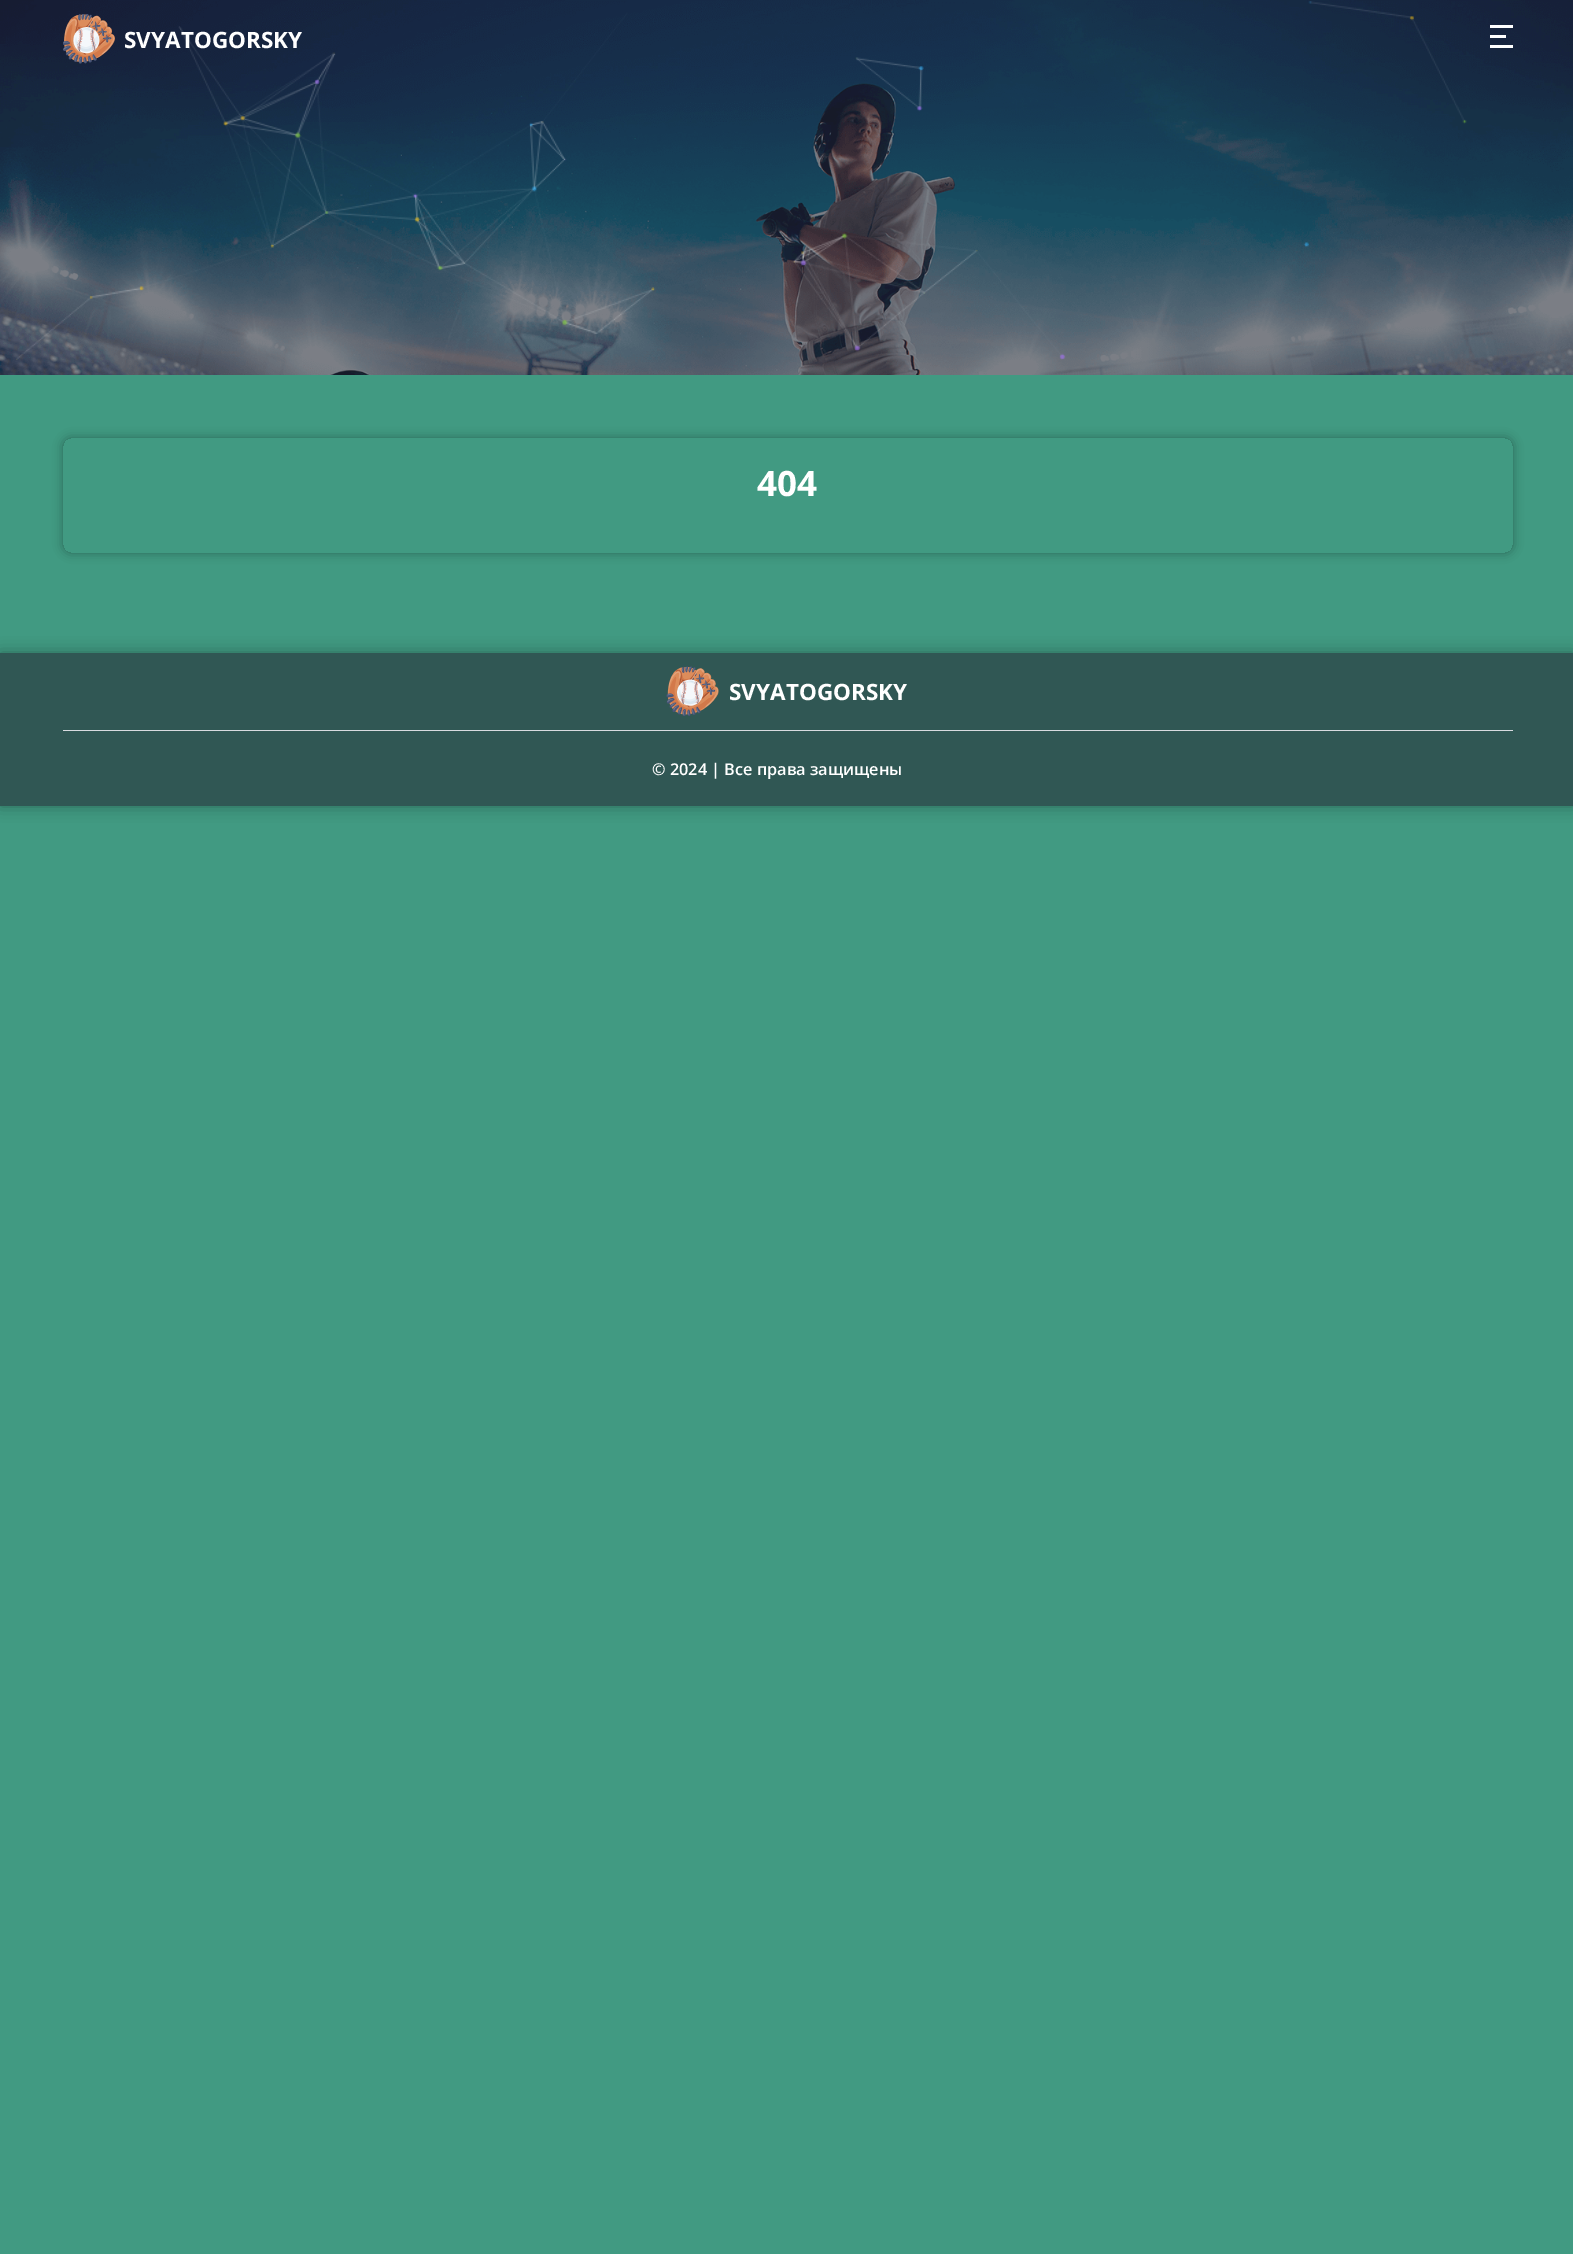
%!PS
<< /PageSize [1573 2254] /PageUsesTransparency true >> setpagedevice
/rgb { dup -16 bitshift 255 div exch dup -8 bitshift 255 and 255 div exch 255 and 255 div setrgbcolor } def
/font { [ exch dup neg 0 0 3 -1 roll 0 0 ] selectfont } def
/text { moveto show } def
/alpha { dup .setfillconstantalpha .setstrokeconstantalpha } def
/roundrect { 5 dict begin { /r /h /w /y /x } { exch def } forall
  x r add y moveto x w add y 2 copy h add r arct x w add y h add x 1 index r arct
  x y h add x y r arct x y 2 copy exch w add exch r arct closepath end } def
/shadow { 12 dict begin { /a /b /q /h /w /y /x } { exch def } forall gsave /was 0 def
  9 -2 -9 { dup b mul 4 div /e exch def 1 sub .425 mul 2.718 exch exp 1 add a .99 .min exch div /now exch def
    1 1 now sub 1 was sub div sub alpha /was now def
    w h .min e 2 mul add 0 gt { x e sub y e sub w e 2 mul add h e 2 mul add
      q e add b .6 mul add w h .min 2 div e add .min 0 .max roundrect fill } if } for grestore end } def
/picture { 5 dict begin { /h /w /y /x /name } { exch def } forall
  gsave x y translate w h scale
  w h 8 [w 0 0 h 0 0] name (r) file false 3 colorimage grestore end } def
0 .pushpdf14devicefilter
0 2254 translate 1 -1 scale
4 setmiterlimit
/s1 { /OpenSans-Bold 22.5 font 16#FFFFFF rgb } def
/s2 { /OpenSans-Bold 35 font 16#FFFFFF rgb } def
/s3 { /OpenSans-SemiBold 16.25 font 16#FFFFFF rgb } def
16#419A82 rgb
0 0 1573 2254 rectfill
(pic1.raw) 0 0 1573 375 picture
(pic2.raw) 16 1 1451 359 picture
(pic3.raw) 63 14 52 50 picture
s1
(SVYATOGORSKY) 124 48 text
1490 25 23 3 rectfill
1490 35 16 3 rectfill
1490 45 23 3 rectfill
gsave
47 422 moveto 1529 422 lineto 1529 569 lineto 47 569 lineto closepath 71 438 moveto 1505 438 lineto 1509.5 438 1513 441.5 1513 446 curveto 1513 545 lineto 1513 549.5 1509.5 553 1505 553 curveto 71 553 lineto 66.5 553 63 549.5 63 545 curveto 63 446 lineto 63 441.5 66.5 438 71 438 curveto closepath eoclip newpath
16#000000 rgb
63 438 1450 115 8 5 0.32 shadow
grestore
s2
(404) 757 496 text
16#000000 rgb
0 653 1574 153 0 7.5 0.32 shadow
16#305754 rgb
0 653 1573 153 rectfill
(pic4.raw) 666 666 53 50 picture
s1
(SVYATOGORSKY) 729 700 text
16#D8DBE0 rgb
63 730 1450 1 rectfill
s3
(© 2024 | Все права защищены) 652 775 text
.poppdf14devicefilter showpage
